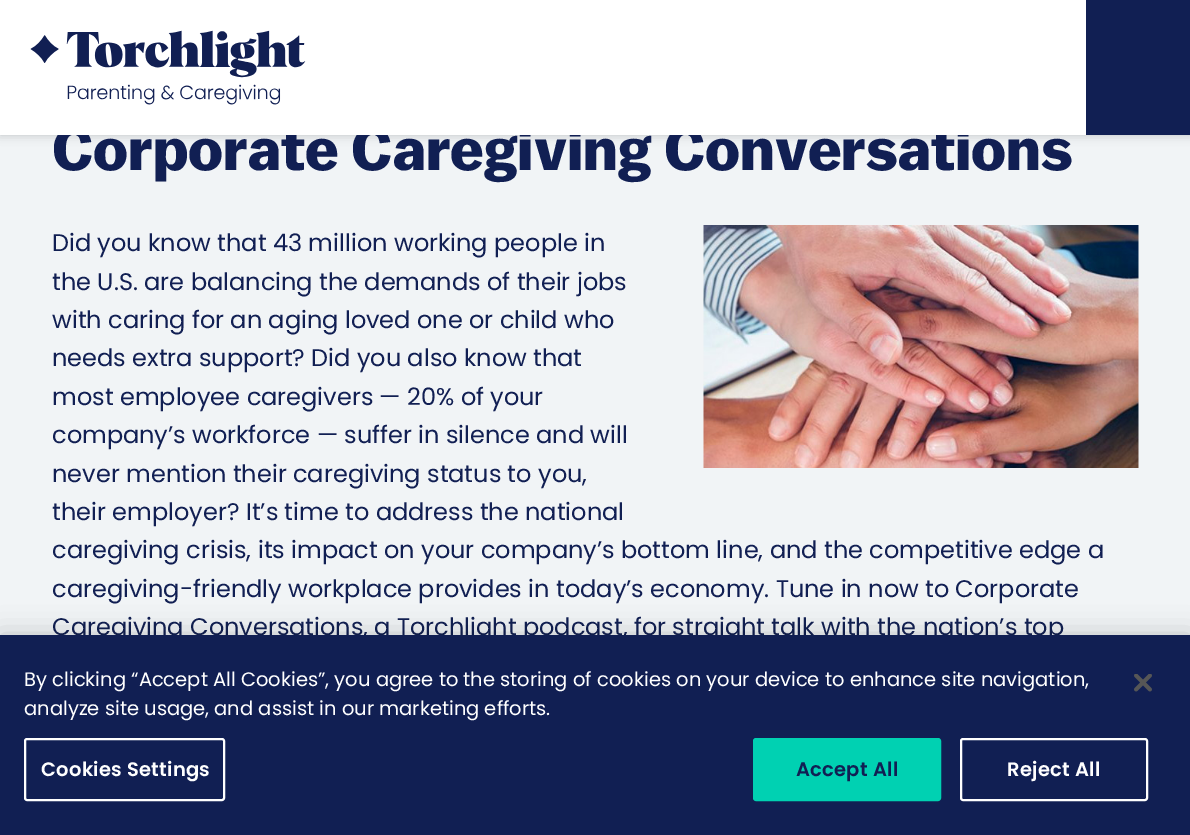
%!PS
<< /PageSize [1190 835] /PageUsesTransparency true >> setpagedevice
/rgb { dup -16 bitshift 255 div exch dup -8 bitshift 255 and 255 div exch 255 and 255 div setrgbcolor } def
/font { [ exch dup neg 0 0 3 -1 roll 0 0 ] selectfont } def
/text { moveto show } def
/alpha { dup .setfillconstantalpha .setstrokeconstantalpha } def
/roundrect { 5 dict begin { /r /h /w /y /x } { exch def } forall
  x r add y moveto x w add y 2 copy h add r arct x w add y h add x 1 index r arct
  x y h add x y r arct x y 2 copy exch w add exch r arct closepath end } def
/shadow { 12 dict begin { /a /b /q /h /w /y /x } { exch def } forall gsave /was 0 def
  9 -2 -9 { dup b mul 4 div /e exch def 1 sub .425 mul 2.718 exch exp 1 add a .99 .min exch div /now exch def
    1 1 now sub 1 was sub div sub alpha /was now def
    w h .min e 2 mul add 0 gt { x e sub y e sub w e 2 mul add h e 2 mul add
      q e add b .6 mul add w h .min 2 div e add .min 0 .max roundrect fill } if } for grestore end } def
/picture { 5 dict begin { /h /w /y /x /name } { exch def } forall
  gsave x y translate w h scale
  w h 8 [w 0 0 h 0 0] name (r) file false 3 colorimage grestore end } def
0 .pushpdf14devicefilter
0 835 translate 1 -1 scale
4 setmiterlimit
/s1 { /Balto-Bold 60 font 16#111F53 rgb } def
/s2 { /Poppins-Regular 24 font 16#111F53 rgb } def
/s3 { /Poppins-Regular 19.5 font 16#FFFFFF rgb } def
16#F1F4F6 rgb
0 0 1190 835 rectfill
16#000000 rgb
0 0 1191 135 0 5 0.2 shadow
s1
(Corporate Caregiving Conversations) 52 170 text
16#FFFFFF rgb
0 0 1086 135 rectfill
(pic1.raw) 30 30 276 75 picture
16#111F53 rgb
1086 0 104 135 rectfill
(pic2.raw) 703 225 436 243 picture
s2
(Did you know that 43 million working people in) 52 251 text
(the U.S. are balancing the demands of their jobs) 52 290 text
(with caring for an aging loved one or child who) 52 328 text
(needs extra support? Did you also know that) 52 366 text
(most employee caregivers — 20% of your) 52 405 text
(company’s workforce — suffer in silence and will) 52 443 text
(never mention their caregiving status to you,) 52 482 text
(their employer? It’s time to address the national) 52 520 text
(caregiving crisis, its impact on your company’s bottom line, and the competitive edge a) 52 558 text
(caregiving-friendly workplace provides in today’s economy. Tune in now to Corporate) 52 597 text
(Caregiving Conversations, a Torchlight podcast, for straight talk with the nation’s top) 52 635 text
16#000000 rgb
0 635 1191 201 0 13.5 0.2 shadow
16#111F53 rgb
0 635 1190 200 rectfill
s3
(By clicking “Accept All Cookies”, you agree to the storing of cookies on your device to enhance site navigation,) 24 686 text
(analyze site usage, and assist in our marketing efforts.) 24 715 text
2 setlinewidth
25 739 199 61 2 roundrect stroke
/Poppins-SemiBold 19.5 font
41 776 moveto 0.25 0 (Cookies Settings) ashow
16#00D1B2 rgb
754 739 186 61 2 roundrect gsave fill grestore
stroke
16#111F53 rgb
796 776 moveto 0.25 0 (Accept All) ashow
16#FFFFFF rgb
961 739 186 61 2 roundrect stroke
1007 776 moveto 0.25 0 (Reject All) ashow
(pic3.raw) 1134 674 18 18 picture
.poppdf14devicefilter showpage
